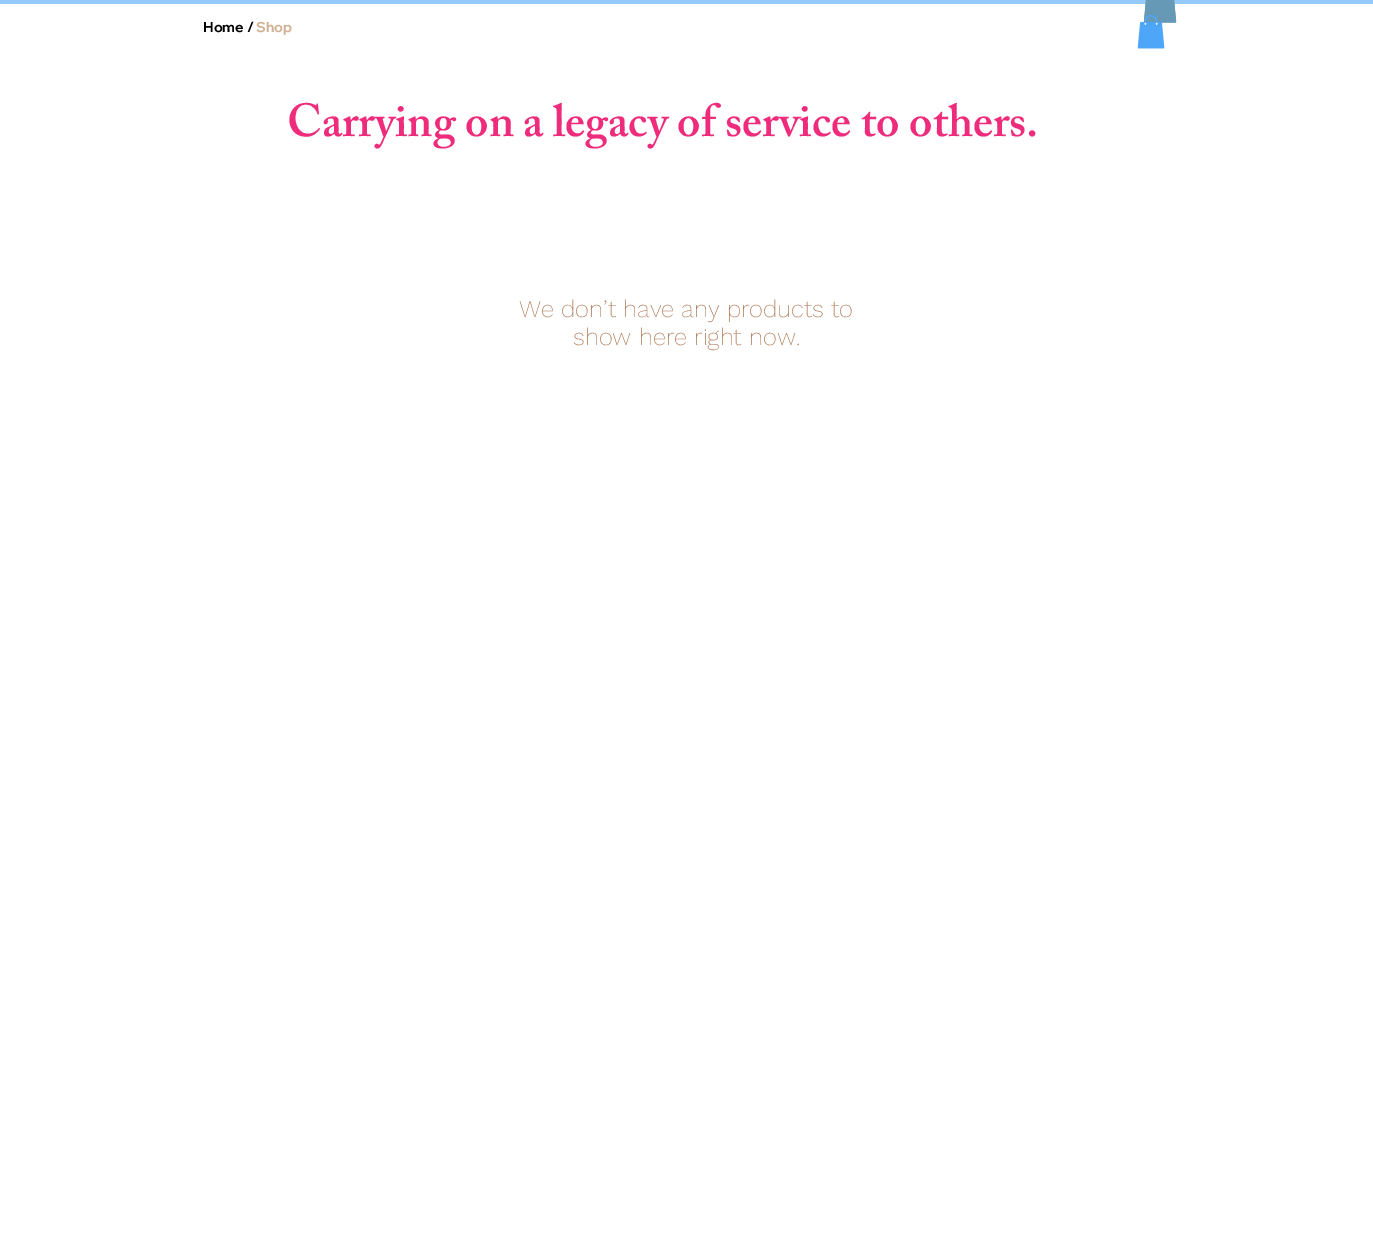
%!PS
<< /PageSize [1373 1252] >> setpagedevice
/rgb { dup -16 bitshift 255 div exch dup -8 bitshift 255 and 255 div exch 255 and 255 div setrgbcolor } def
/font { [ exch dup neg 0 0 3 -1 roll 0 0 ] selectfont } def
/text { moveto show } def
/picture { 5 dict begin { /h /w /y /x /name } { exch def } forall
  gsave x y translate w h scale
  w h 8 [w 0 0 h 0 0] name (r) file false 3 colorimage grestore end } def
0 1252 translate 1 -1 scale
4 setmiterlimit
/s1 { /WixMadeforDisplay-Bold 14 font 16#000000 rgb } def
/s2 { /WixMadeforDisplay-Bold 14 font 16#D1B192 rgb } def
/s3 { /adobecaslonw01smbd-SemiBold 46 font 16#EE2C7B rgb } def
/s4 { /WorkSans-ExtraLight 24 font 16#AB7550 rgb } def
16#FFFFFF rgb
0 0 1373 1252 rectfill
16#95CAFB rgb
0 0 1373 4 rectfill
(pic1.raw) 1143 0 34 23 picture
(pic2.raw) 1143 0 34 23 picture
s1
(Home /) 203 32 text
s2
(Shop) 256 32 text
(pic3.raw) 1137 15 28 34 picture
s3
(Carrying on a legacy of service to others.) 287 136 text
s4
(We don’t have any products to) 519 317 text
(show here right now.) 573 345 text
showpage
